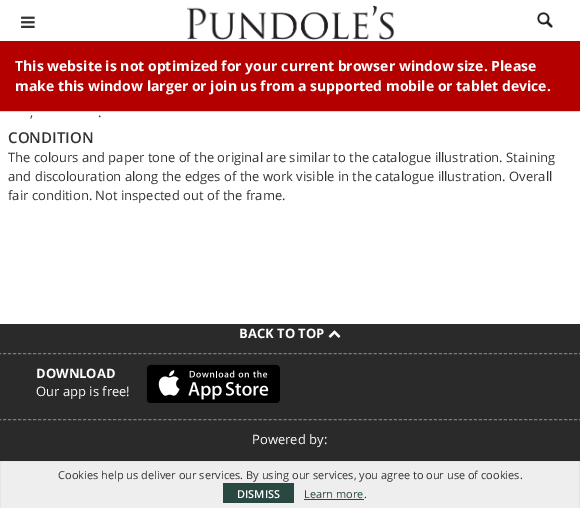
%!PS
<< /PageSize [580 508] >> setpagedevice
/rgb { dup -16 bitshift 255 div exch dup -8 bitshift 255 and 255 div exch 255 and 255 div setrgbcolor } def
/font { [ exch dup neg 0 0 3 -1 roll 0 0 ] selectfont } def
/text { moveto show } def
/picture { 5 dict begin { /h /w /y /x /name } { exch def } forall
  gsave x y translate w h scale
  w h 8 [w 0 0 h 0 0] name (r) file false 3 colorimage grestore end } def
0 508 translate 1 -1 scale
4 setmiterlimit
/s1 { /OpenSans-Bold 14 font 16#FFFFFF rgb } def
/s2 { /OpenSans-Regular 13 font 16#333333 rgb } def
/s3 { /OpenSans-SemiBold 15 font 16#333333 rgb } def
/s4 { /OpenSans-Bold 13 font 16#FFFFFF rgb } def
/s5 { /OpenSans-Regular 13 font 16#FFFFFF rgb } def
/s6 { /OpenSans-Regular 11 font 16#333333 rgb } def
/s7 { /OpenSans-SemiBold 11 font 16#FFFFFF rgb } def
/s8 { /OpenSans-Regular 11 font 16#284841 rgb } def
16#FFFFFF rgb
0 0 580 508 rectfill
(pic1.raw) 21 16 14 12 picture
(pic2.raw) 186 5 209 35 picture
(pic3.raw) 537 12 16 16 picture
16#B50000 rgb
0 41 580 70 rectfill
16#EBCCD1 rgb
0 111 580 1 rectfill
s1
(This website is not optimized for your current browser window size. Please) 15 71 text
(make this window larger or join us from a supported mobile or tablet device.) 15 91 text
s2
(,) 30 117 text
(.) 98 117 text
s3
(CONDITION) 8 143 text
s2
(The colours and paper tone of the original are similar to the catalogue illustration. Staining) 8 162 text
(and discolouration along the edges of the work visible in the catalogue illustration. Overall) 8 181 text
(fair condition. Not inspected out of the frame.) 8 200 text
16#2A2A2A rgb
0 324 580 137 rectfill
16#7C7C7C rgb
[3 2.01] 0 setdash
-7 353.5 moveto 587 353.5 lineto stroke
s4
(BACK TO TOP) 239 338 text
(pic4.raw) 328 330 13 8 picture
16#7C7C7C rgb
-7 419.5 moveto 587 419.5 lineto stroke
s4
(DOWNLOAD) 36 378 text
s5
(Our app is free!) 36 396 text
(pic5.raw) 146 364 134 39 picture
(Powered by:) 252 444 text
16#EEEEEE rgb
1 462 578 46 rectfill
16#E4E4E4 rgb
0 461 580 1 rectfill
579 461 1 47 rectfill
0 461 1 47 rectfill
s6
(Cookies help us deliver our services. By using our services, you agree to our use of cookies.) 58 479 text
16#284841 rgb
223 483 71 20 rectfill
s7
(DISMISS) 237 498 text
s8
(Learn more) 304 498 text
304 499 60 1 rectfill
s6
(.) 364 498 text
showpage
